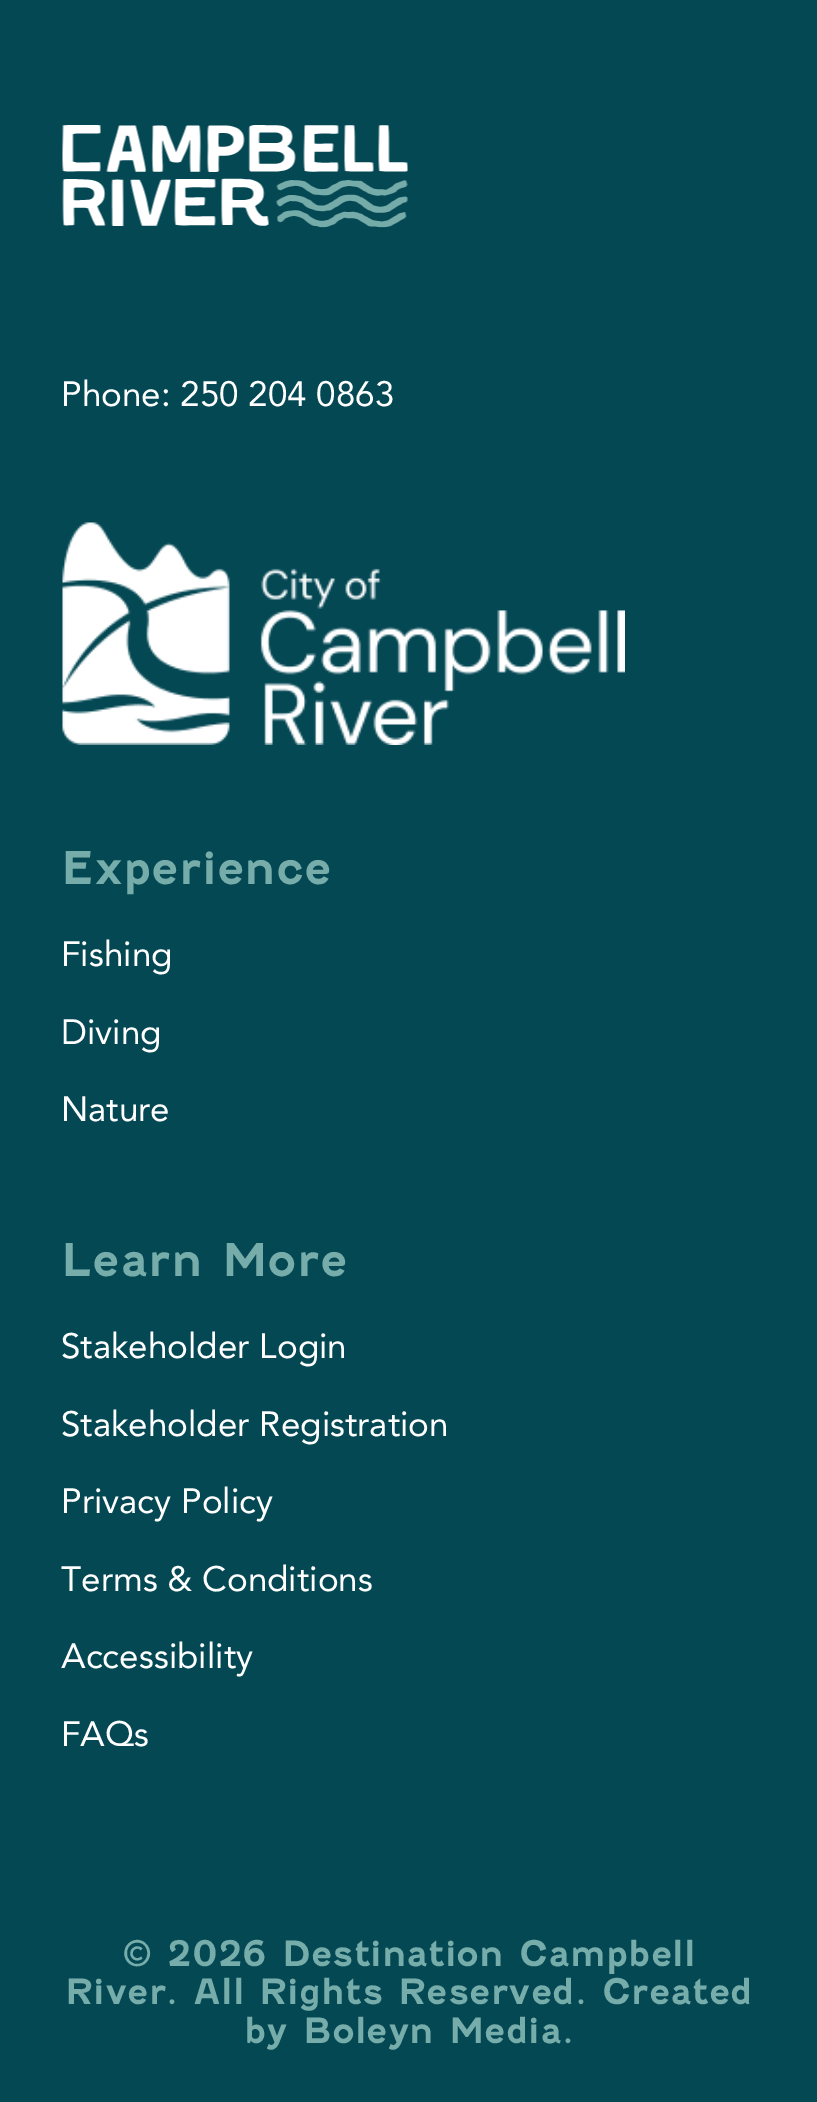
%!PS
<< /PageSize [817 2102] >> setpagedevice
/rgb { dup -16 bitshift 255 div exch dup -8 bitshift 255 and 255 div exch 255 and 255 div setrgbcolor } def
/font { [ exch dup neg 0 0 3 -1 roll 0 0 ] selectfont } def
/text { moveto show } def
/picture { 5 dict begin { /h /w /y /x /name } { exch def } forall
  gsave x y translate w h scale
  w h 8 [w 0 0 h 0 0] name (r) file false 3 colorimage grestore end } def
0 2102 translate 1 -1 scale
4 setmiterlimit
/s1 { /Avenir-Regular 35 font 16#FFFFFF rgb } def
/s2 { /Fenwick-Bold 45 font 16#76ACA9 rgb } def
/s3 { /Fenwick-Bold 35 font 16#76ACA9 rgb } def
16#044854 rgb
0 0 817 2102 rectfill
(pic1.raw) 62 125 346 103 picture
s1
(Phone: 250 204 0863) 61 406 text
(pic2.raw) 62 522 563 223 picture
s2
(Experience) 61 884 text
s1
(Fishing) 61 966 text
(Diving) 61 1044 text
(Nature) 61 1121 text
s2
(Learn More) 61 1276 text
s1
(Stakeholder Login) 61 1358 text
(Stakeholder Registration) 61 1436 text
(Privacy Policy) 61 1513 text
(Terms & Conditions) 61 1591 text
(Accessibility) 61 1668 text
(FAQs) 61 1746 text
s3
(© 2026 Destination Campbell) 122 1966 text
(River. All Rights Reserved. Created) 65 2004 text
(by Boleyn Media.) 244 2043 text
showpage
